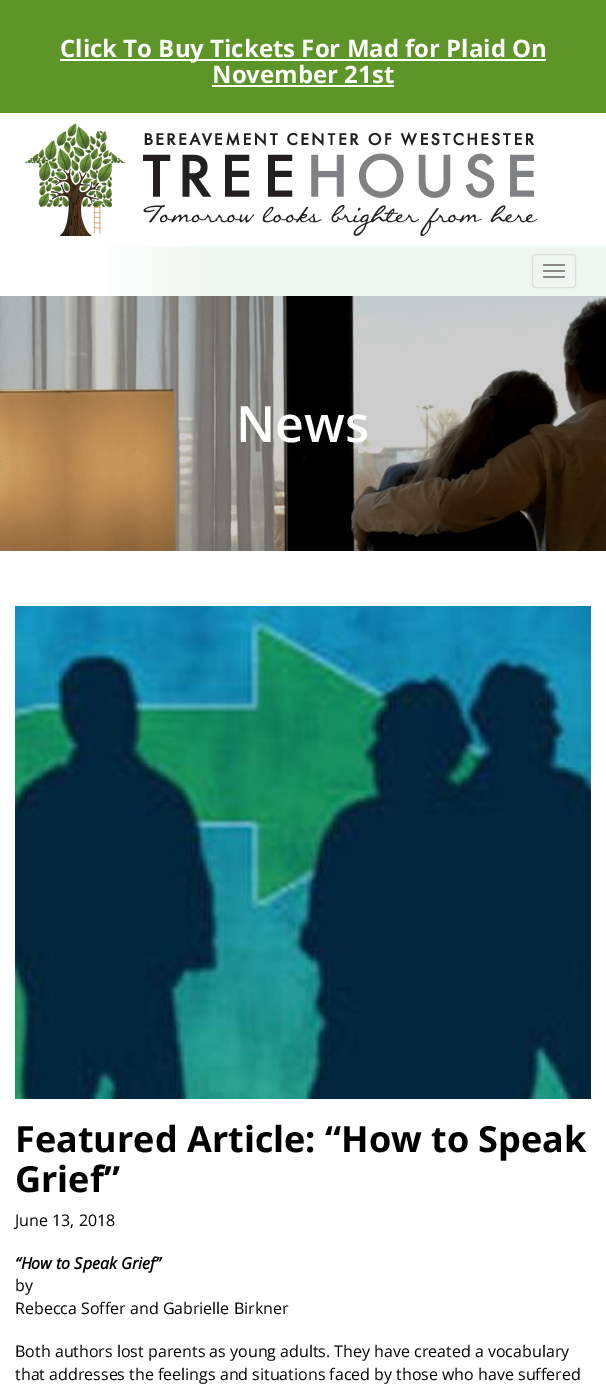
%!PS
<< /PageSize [606 1397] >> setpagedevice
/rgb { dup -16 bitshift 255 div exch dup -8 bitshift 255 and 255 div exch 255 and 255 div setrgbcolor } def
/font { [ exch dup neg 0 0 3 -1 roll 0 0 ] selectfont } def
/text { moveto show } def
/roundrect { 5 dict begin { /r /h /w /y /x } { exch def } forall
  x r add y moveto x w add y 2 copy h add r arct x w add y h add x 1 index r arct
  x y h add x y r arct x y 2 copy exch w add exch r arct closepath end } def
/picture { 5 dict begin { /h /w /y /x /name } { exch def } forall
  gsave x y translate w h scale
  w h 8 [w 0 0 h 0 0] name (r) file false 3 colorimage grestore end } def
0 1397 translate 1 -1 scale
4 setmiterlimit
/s1 { /OpenSans-Bold 24 font 16#FFFFFF rgb } def
/s2 { /OpenSans-SemiBold 50 font 16#FFFFFF rgb } def
/s3 { /OpenSans-Bold 36 font 16#000000 rgb } def
/s4 { /OpenSans-Regular 16 font 16#000000 rgb } def
/s5 { /OpenSans-BoldItalic 16 font 16#000000 rgb } def
16#FFFFFF rgb
0 0 606 1397 rectfill
16#5E9529 rgb
0 0 606 113 rectfill
16#FFFFFF rgb
60 59 486 2 rectfill
s1
(Click To Buy Tickets For Mad for Plaid On) 60 57 text
(November 21st) 212 83 text
212 85 182 2 rectfill
(pic1.raw) 25 123 513 113 picture
gsave 301 246 moveto 606 246 lineto 606 296 lineto 301 296 lineto closepath clip newpath
<< /ShadingType 2 /ColorSpace /DeviceRGB /Coords [0 271 606 271] /Extend [true true] /Function << /FunctionType 3 /Domain [0 1] /Functions [<< /FunctionType 2 /Domain [0 1] /C0 [1 1 1] /C1 [1 1 1] /N 1 >> << /FunctionType 2 /Domain [0 1] /C0 [1 1 1] /C1 [0.933 0.965 0.941] /N 1 >> << /FunctionType 2 /Domain [0 1] /C0 [0.933 0.965 0.941] /C1 [0.933 0.965 0.941] /N 1 >>] /Bounds [0.49 0.54] /Encode [0 1 0 1 0 1] >> >> shfill grestore
gsave 109 246 moveto 323 246 lineto 323 296 lineto 109 296 lineto closepath clip newpath
<< /ShadingType 2 /ColorSpace /DeviceRGB /Coords [15 271 591 271] /Extend [true true] /Function << /FunctionType 3 /Domain [0 1] /Functions [<< /FunctionType 2 /Domain [0 1] /C0 [1 1 1] /C1 [1 1 1] /N 1 >> << /FunctionType 2 /Domain [0 1] /C0 [1 1 1] /C1 [0.933 0.965 0.941] /N 1 >> << /FunctionType 2 /Domain [0 1] /C0 [0.933 0.965 0.941] /C1 [0.933 0.965 0.941] /N 1 >>] /Bounds [0.13 0.36] /Encode [0 1 0 1 0 1] >> >> shfill grestore
16#DDDDDD rgb
532.5 254.5 43 33 3.5 roundrect stroke
16#888888 rgb
543 264 22 2 1 roundrect fill
543 270 22 2 1 roundrect fill
543 276 22 2 1 roundrect fill
(pic2.raw) 0 296 606 255 picture
s2
(News) 236 442 text
(pic3.raw) 15 606 576 493 picture
s3
(Featured Article: “How to Speak) 15 1152 text
(Grief”) 15 1192 text
s4
(June 13, 2018) 15 1226 text
s5
(“How to Speak Grief”) 15 1269 text
s4
(by) 15 1291 text
(Rebecca Soffer and Gabrielle Birkner) 15 1314 text
(Both authors lost parents as young adults. They have created a vocabulary) 15 1357 text
(that addresses the feelings and situations faced by those who have suffered) 15 1380 text
showpage
